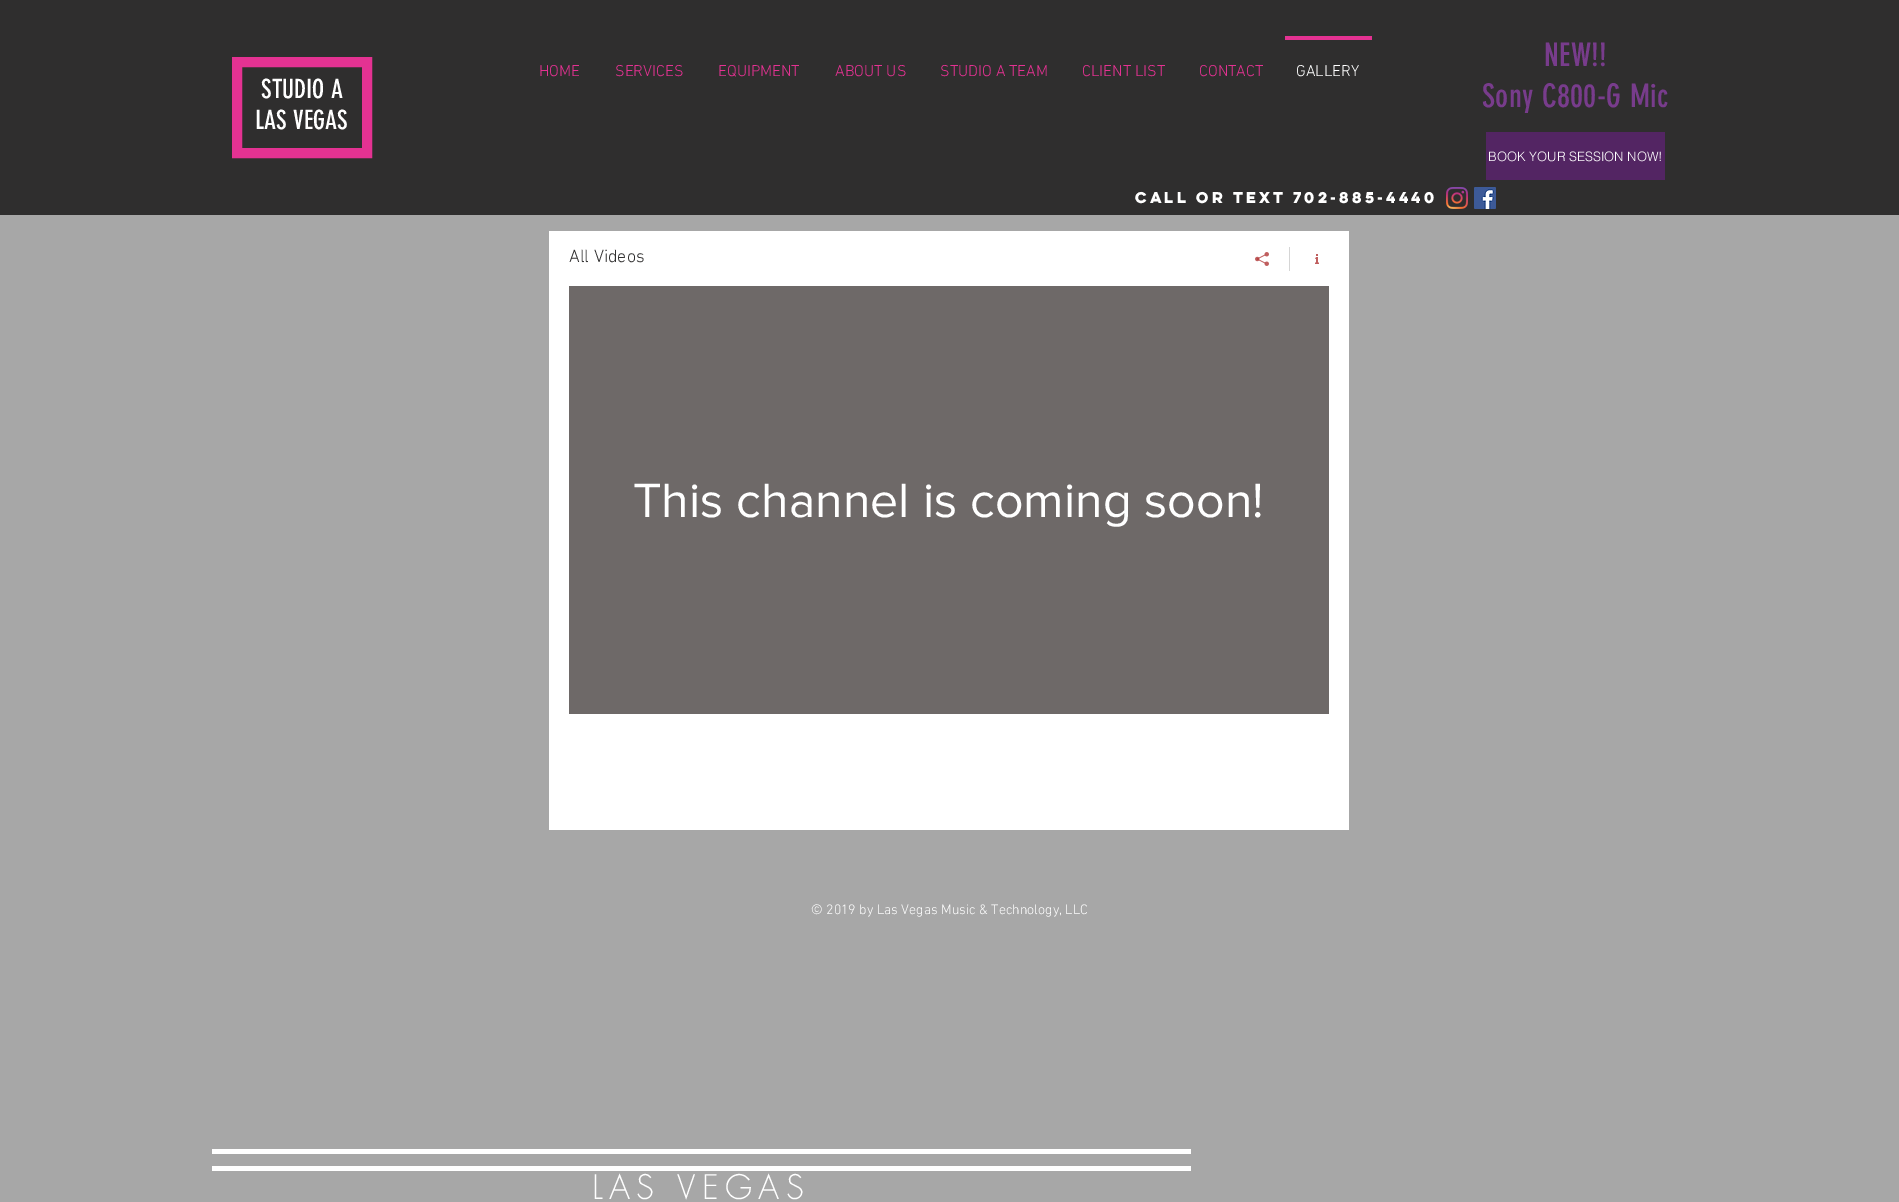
%!PS
<< /PageSize [1899 1202] >> setpagedevice
/rgb { dup -16 bitshift 255 div exch dup -8 bitshift 255 and 255 div exch 255 and 255 div setrgbcolor } def
/font { [ exch dup neg 0 0 3 -1 roll 0 0 ] selectfont } def
/text { moveto show } def
/picture { 5 dict begin { /h /w /y /x /name } { exch def } forall
  gsave x y translate w h scale
  w h 8 [w 0 0 h 0 0] name (r) file false 3 colorimage grestore end } def
0 1202 translate 1 -1 scale
4 setmiterlimit
/s1 { /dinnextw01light-Light 16 font 16#E43292 rgb } def
/s2 { /dinnextw01light-Light 16 font 16#FFFFFF rgb } def
/s3 { /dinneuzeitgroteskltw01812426-Regular 26 font 16#FFFFFF rgb } def
/s4 { /helvetica-Light 13 font 16#FFFFFF rgb } def
/s5 { /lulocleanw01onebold-Bold 14 font 16#FFFFFF rgb } def
/s6 { /dinnextw01light-Light 18 font 16#2F2E2E rgb } def
/s7 { /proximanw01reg-Regular 50 font 16#FFFFFF rgb } def
/s8 { /dinnextw01light-Light 14 font 16#FFFFFF rgb } def
16#A7A7A7 rgb
0 0 1899 1202 rectfill
16#2F2E2E rgb
0 0 1899 215 rectfill
s1
(HOME) 539 76 text
(SERVICES) 615 76 text
(EQUIPMENT) 718 76 text
(ABOUT US) 835 76 text
(STUDIO A TEAM) 940 76 text
(CLIENT LIST) 1082 76 text
(CONTACT) 1199 76 text
1285 36 87 4 rectfill
s2
(GALLERY) 1296 76 text
/dinneuzeitgroteskltw01812426-Regular 32 font
16#783C8C rgb
1544 66 moveto 0.3 0 (NEW!!) ashow
1482 107 moveto 0.3 0 (Sony C800-G Mic) ashow
16#E43292 rgb
10 setlinewidth
237 62 130 91 rectstroke
s3
(STUDIO A) 261 98 text
(LAS VEGAS) 255 129 text
16#532563 rgb
1486 132 179 48 rectfill
s4
(BOOK YOUR SESSION NOW!) 1488 161 text
s5
(Call or Text 702-885-4440) 1135 203 text
(pic1.raw) 1446 187 22 22 picture
(pic2.raw) 1474 187 22 22 picture
549 231 800 599 rectfill
s6
(All Videos) 569 262 text
16#D5D5D5 rgb
1289 247 1 24 rectfill
(pic3.raw) 1255 252 14 14 picture
(pic4.raw) 1315 254 4 10 picture
16#6E6968 rgb
569 286 760 428 rectfill
s7
(This channel is coming soon!) 633 517 text
s8
(© 2019 by Las Vegas Music & Technology, LLC) 811 914 text
212 1149 979 5 rectfill
212 1166 979 5 rectfill
/futura-Light 33 font
592 1199 moveto 6.25 0 (LAS VEGAS) ashow
showpage
